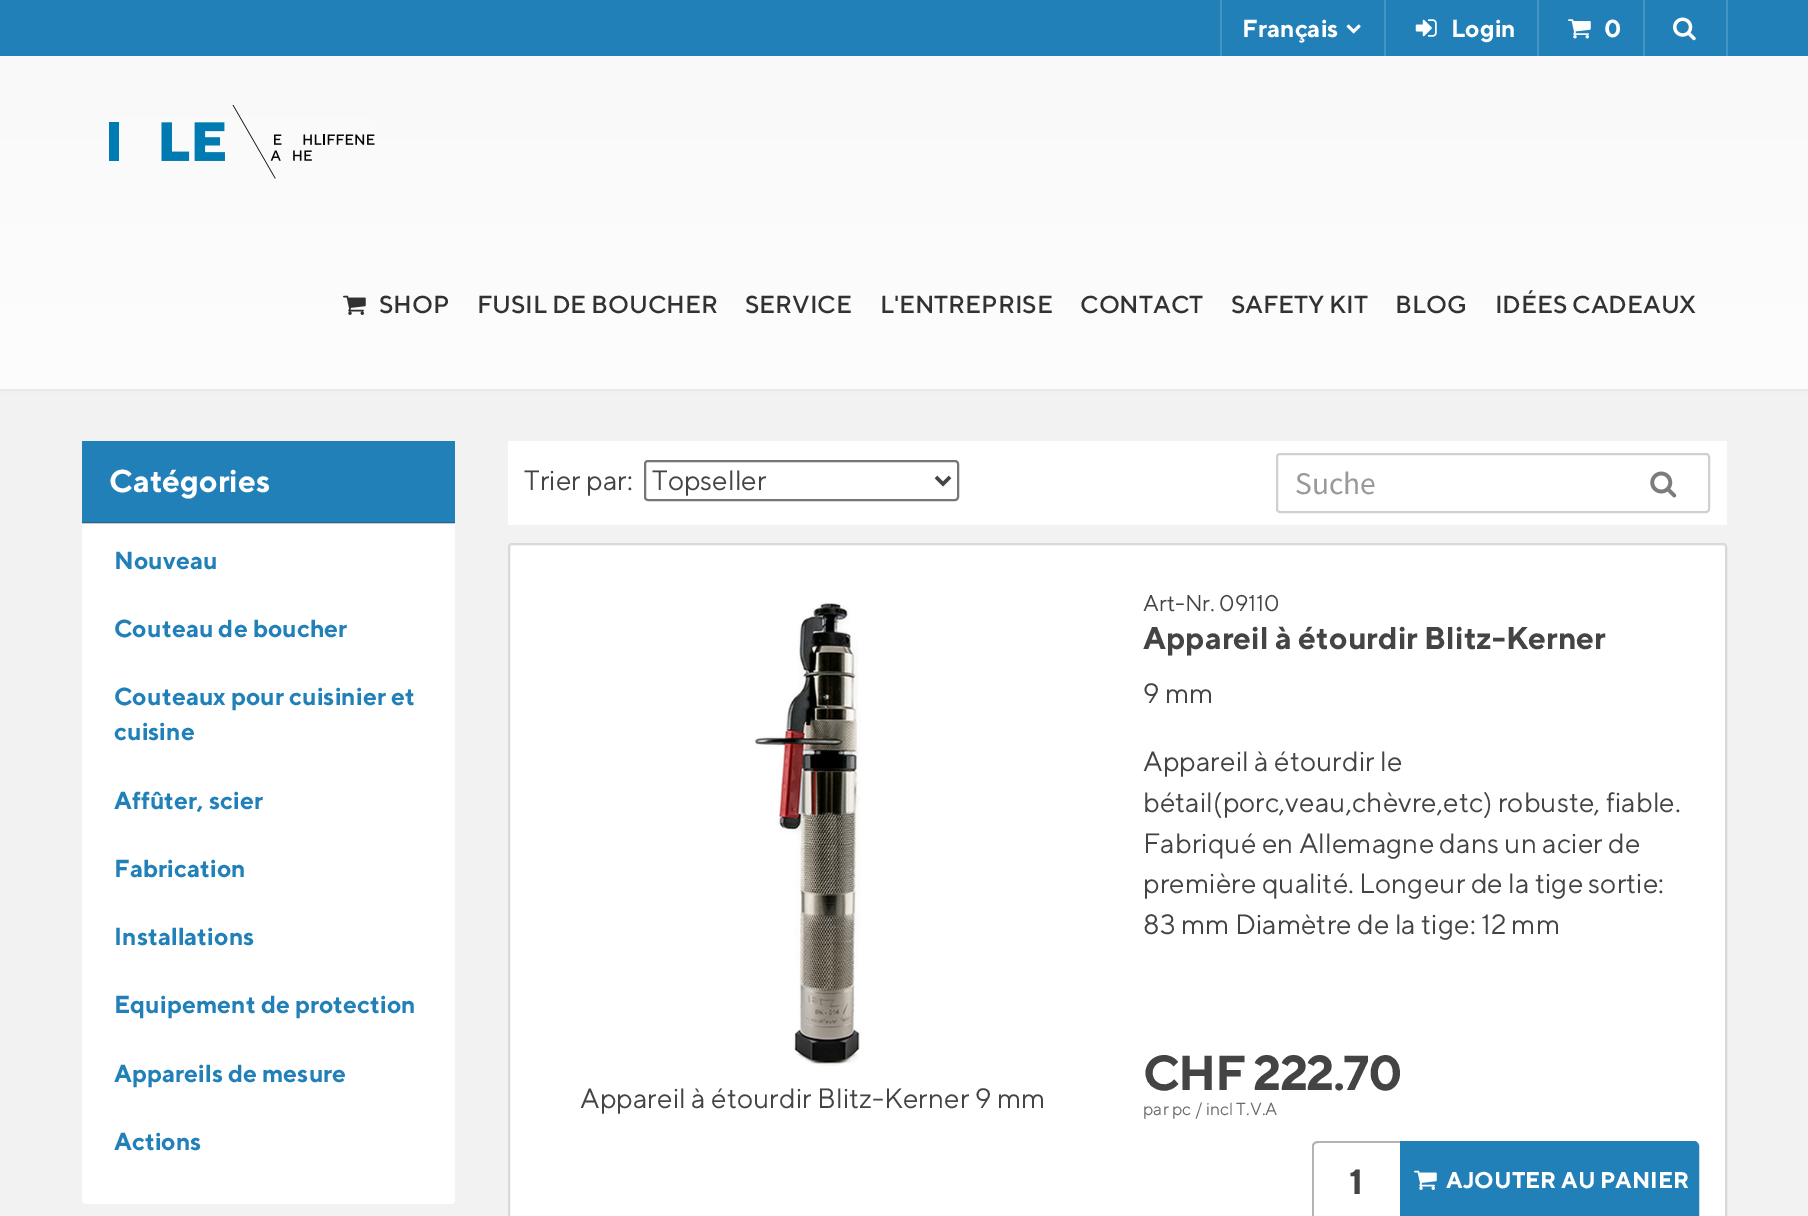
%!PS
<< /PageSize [1808 1216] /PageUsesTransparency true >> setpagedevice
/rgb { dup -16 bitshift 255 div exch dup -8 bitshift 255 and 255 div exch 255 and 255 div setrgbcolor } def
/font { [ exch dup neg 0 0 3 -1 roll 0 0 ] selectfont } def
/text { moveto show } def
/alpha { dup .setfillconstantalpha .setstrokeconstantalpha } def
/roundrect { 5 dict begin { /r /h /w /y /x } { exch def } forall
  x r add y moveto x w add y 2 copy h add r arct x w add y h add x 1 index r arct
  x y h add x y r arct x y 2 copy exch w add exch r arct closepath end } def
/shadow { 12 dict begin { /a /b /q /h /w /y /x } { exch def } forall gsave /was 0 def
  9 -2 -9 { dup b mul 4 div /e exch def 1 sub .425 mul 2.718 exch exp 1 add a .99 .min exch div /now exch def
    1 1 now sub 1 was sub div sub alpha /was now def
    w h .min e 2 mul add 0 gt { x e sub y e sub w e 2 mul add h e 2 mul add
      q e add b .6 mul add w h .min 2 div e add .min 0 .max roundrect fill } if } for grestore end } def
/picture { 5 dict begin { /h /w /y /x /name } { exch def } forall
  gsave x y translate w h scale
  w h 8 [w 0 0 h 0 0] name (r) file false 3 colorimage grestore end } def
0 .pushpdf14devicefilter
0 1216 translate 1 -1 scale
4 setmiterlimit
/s1 { /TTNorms-Bold 24.5 font 16#FFFFFF rgb } def
/s2 { /TTNorms-Bold 31.5 font 16#FFFFFF rgb } def
/s3 { /TTNorms-Bold 24.5 font 16#2280B9 rgb } def
/s4 { /TTNorms-Regular 28 font 16#444444 rgb } def
/s5 { /SourceSansPro-Regular 31.5 font 16#999999 rgb } def
/s6 { /TTNorms-Regular 22.75 font 16#444444 rgb } def
/s7 { /TTNorms-Bold 31.5 font 16#444444 rgb } def
/s8 { /TTNorms-Regular 17.5 font 16#696969 rgb } def
/s9 { /TTNorms-Bold 35 font 16#444444 rgb } def
/s10 { /TTNorms-Bold 22.75 font 16#FFFFFF rgb } def
16#F2F2F2 rgb
0 0 1808 1216 rectfill
16#000000 rgb
0 2 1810 388 0 2 0.05 shadow
gsave 0 56 moveto 1808 56 lineto 1808 389 lineto 0 389 lineto closepath clip newpath
<< /ShadingType 2 /ColorSpace /DeviceRGB /Coords [905 0 905 389] /Extend [true true] /Function << /FunctionType 2 /Domain [0 1] /C0 [0.973 0.973 0.973] /C1 [0.992 0.992 0.992] /N 1 >> >> shfill grestore
16#2280B9 rgb
0 0 1808 56 rectfill
16#4393C4 rgb
1220 0 2 56 rectfill
s1
(Français) 1242 37 text
(pic1.raw) 1346 24 15 10 picture
16#4393C4 rgb
1537 0 2 56 rectfill
1384 0 2 56 rectfill
(pic2.raw) 1415 19 22 18 picture
s1
(Login) 1451 37 text
16#4393C4 rgb
1643 0 2 56 rectfill
(pic3.raw) 1568 19 23 20 picture
s1
(0) 1604 37 text
16#4393C4 rgb
1726 0 2 56 rectfill
(pic4.raw) 1673 17 23 24 picture
(pic5.raw) 109 105 266 74 picture
(pic6.raw) 343 295 23 20 picture
/TTNorms-Medium 24.5 font
16#323232 rgb
379 313 moveto -0.1 0 (SHOP) ashow
477 313 moveto -0.1 0 (FUSIL DE BOUCHER) ashow
745 313 moveto -0.1 0 (SERVICE) ashow
880 313 moveto -0.1 0 (L'ENTREPRISE) ashow
1080 313 moveto -0.1 0 (CONTACT) ashow
1231 313 moveto -0.1 0 (SAFETY KIT) ashow
1395 313 moveto -0.1 0 (BLOG) ashow
1495 313 moveto -0.1 0 (IDÉES CADEAUX) ashow
16#FFFFFF rgb
82 441 373 763 4 roundrect fill
16#CCCCCC rgb
82 523 373 1 rectfill
16#2280B9 rgb
82 441 373 81 rectfill
16#1B6694 rgb
82 522 373 1 rectfill
s2
(Catégories) 109 492 text
s3
(Nouveau) 114 569 text
(Couteau de boucher) 114 637 text
(Couteaux pour cuisinier et) 114 705 text
(cuisine) 114 740 text
(Affûter, scier) 114 809 text
(Fabrication) 114 877 text
(Installations) 114 945 text
(Equipement de protection) 114 1013 text
(Appareils de mesure) 114 1082 text
(Actions) 114 1150 text
16#FFFFFF rgb
508 441 1219 84 rectfill
s4
(Trier par:) 524 490 text
16#767676 rgb
2 setlinewidth
645 461 313 39 3 roundrect stroke
16#444444 rgb
3.5 setlinewidth
936 477 moveto 943 484 lineto 950 477 lineto stroke
(Topseller) 652 490 text
16#D0D0D0 rgb
2 setlinewidth
1277 454 432 58 3 roundrect stroke
s5
(Suche) 1295 494 text
(pic7.raw) 1650 471 27 27 picture
16#FFFFFF rgb
508 543 1219 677 4 roundrect fill
0.15 alpha
16#000000 rgb
509 544 1217 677 3 roundrect stroke
1 alpha
(pic8.raw) 753 600 108 466 picture
s4
(Appareil à étourdir Blitz-Kerner 9 mm) 580 1108 text
s6
(Art-Nr. 09110) 1143 611 text
s7
(Appareil à étourdir Blitz-Kerner) 1143 649 text
s4
(9 mm) 1143 703 text
(Appareil à étourdir le) 1143 771 text
(bétail\(porc,veau,chèvre,etc\) robuste, fiable.) 1143 812 text
(Fabriqué en Allemagne dans un acier de) 1143 853 text
(première qualité. Longeur de la tige sortie:) 1143 893 text
(83 mm Diamètre de la tige: 12 mm) 1143 934 text
/TTNorms-Bold 49 font
1143 1090 moveto -1.75 0 (CHF 222.70) ashow
s8
(par pc / incl T.V.A) 1143 1115 text
16#B3B3B3 rgb
1318 1141 moveto 1400 1141 lineto 1400 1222 lineto 1318 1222 lineto 1315 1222 1312 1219 1312 1216 curveto 1312 1146 lineto 1312 1143 1315 1141 1318 1141 curveto closepath 1318 1143 moveto 1400 1143 lineto 1400 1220 lineto 1318 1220 lineto 1316 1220 1314 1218 1314 1216 curveto 1314 1146 lineto 1314 1144 1316 1143 1318 1143 curveto closepath eofill
s9
(1) 1349 1194 text
16#2280B9 rgb
1401 1142 moveto 1694 1142 lineto 1696 1142 1698 1144 1698 1146 curveto 1698 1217 lineto 1698 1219 1696 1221 1694 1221 curveto 1401 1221 lineto closepath gsave fill grestore
stroke
(pic9.raw) 1414 1170 23 20 picture
s10
(AJOUTER AU PANIER) 1446 1188 text
.poppdf14devicefilter showpage
